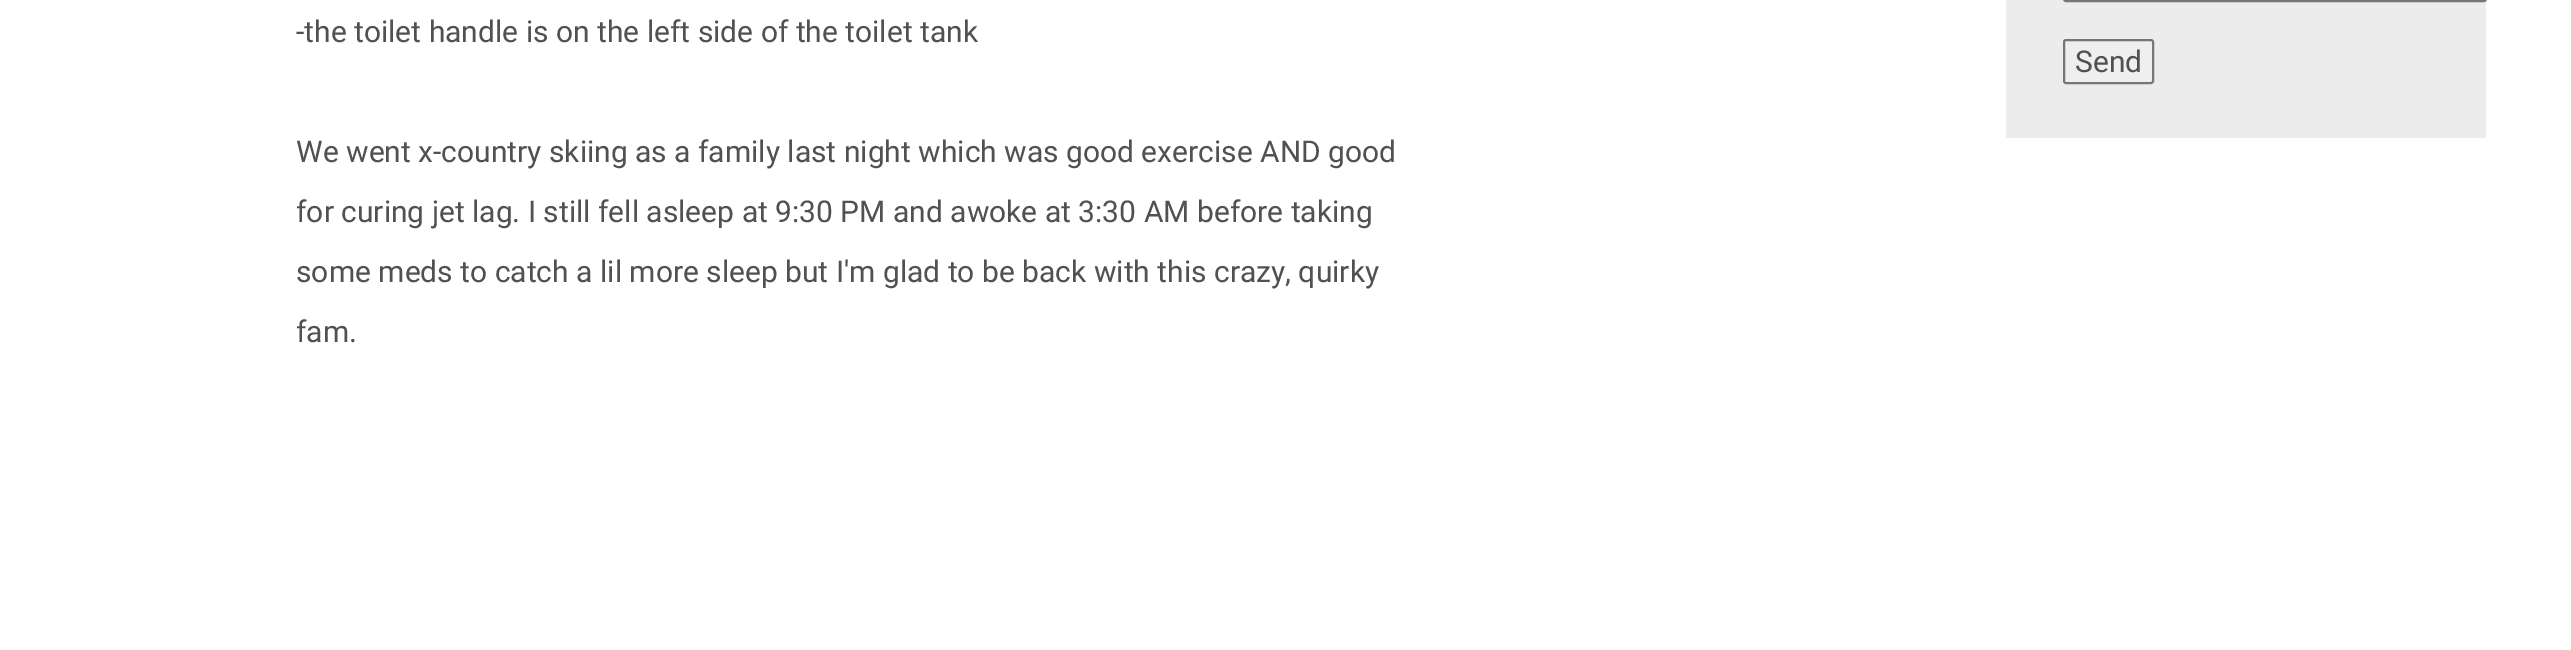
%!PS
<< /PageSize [2571 650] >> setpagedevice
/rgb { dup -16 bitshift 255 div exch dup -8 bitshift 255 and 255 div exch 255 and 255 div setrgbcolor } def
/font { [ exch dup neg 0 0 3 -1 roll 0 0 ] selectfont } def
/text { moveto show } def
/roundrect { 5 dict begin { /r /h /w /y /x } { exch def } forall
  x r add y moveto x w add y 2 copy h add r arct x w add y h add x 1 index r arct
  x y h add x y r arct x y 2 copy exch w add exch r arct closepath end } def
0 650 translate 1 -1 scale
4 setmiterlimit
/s1 { /Roboto-Regular 30 font 16#515151 rgb } def
16#FFFFFF rgb
0 0 2571 650 rectfill
s1
(-the toilet handle is on the left side of the toilet tank) 296 42 text
(We went x-country skiing as a family last night which was good exercise AND good) 296 162 text
(for curing jet lag. I still fell asleep at 9:30 PM and awoke at 3:30 AM before taking) 296 222 text
(some meds to catch a lil more sleep but I'm glad to be back with this crazy, quirky) 296 282 text
(fam.) 296 342 text
16#ECECEC rgb
2006 0 480 138 rectfill
16#767676 rgb
2 setlinewidth
2064 -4 422 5 2 roundrect stroke
16#EFEFEF rgb
2064 40 89 43 2 roundrect gsave fill grestore
16#767676 rgb
stroke
s1
(Send) 2075 72 text
showpage
